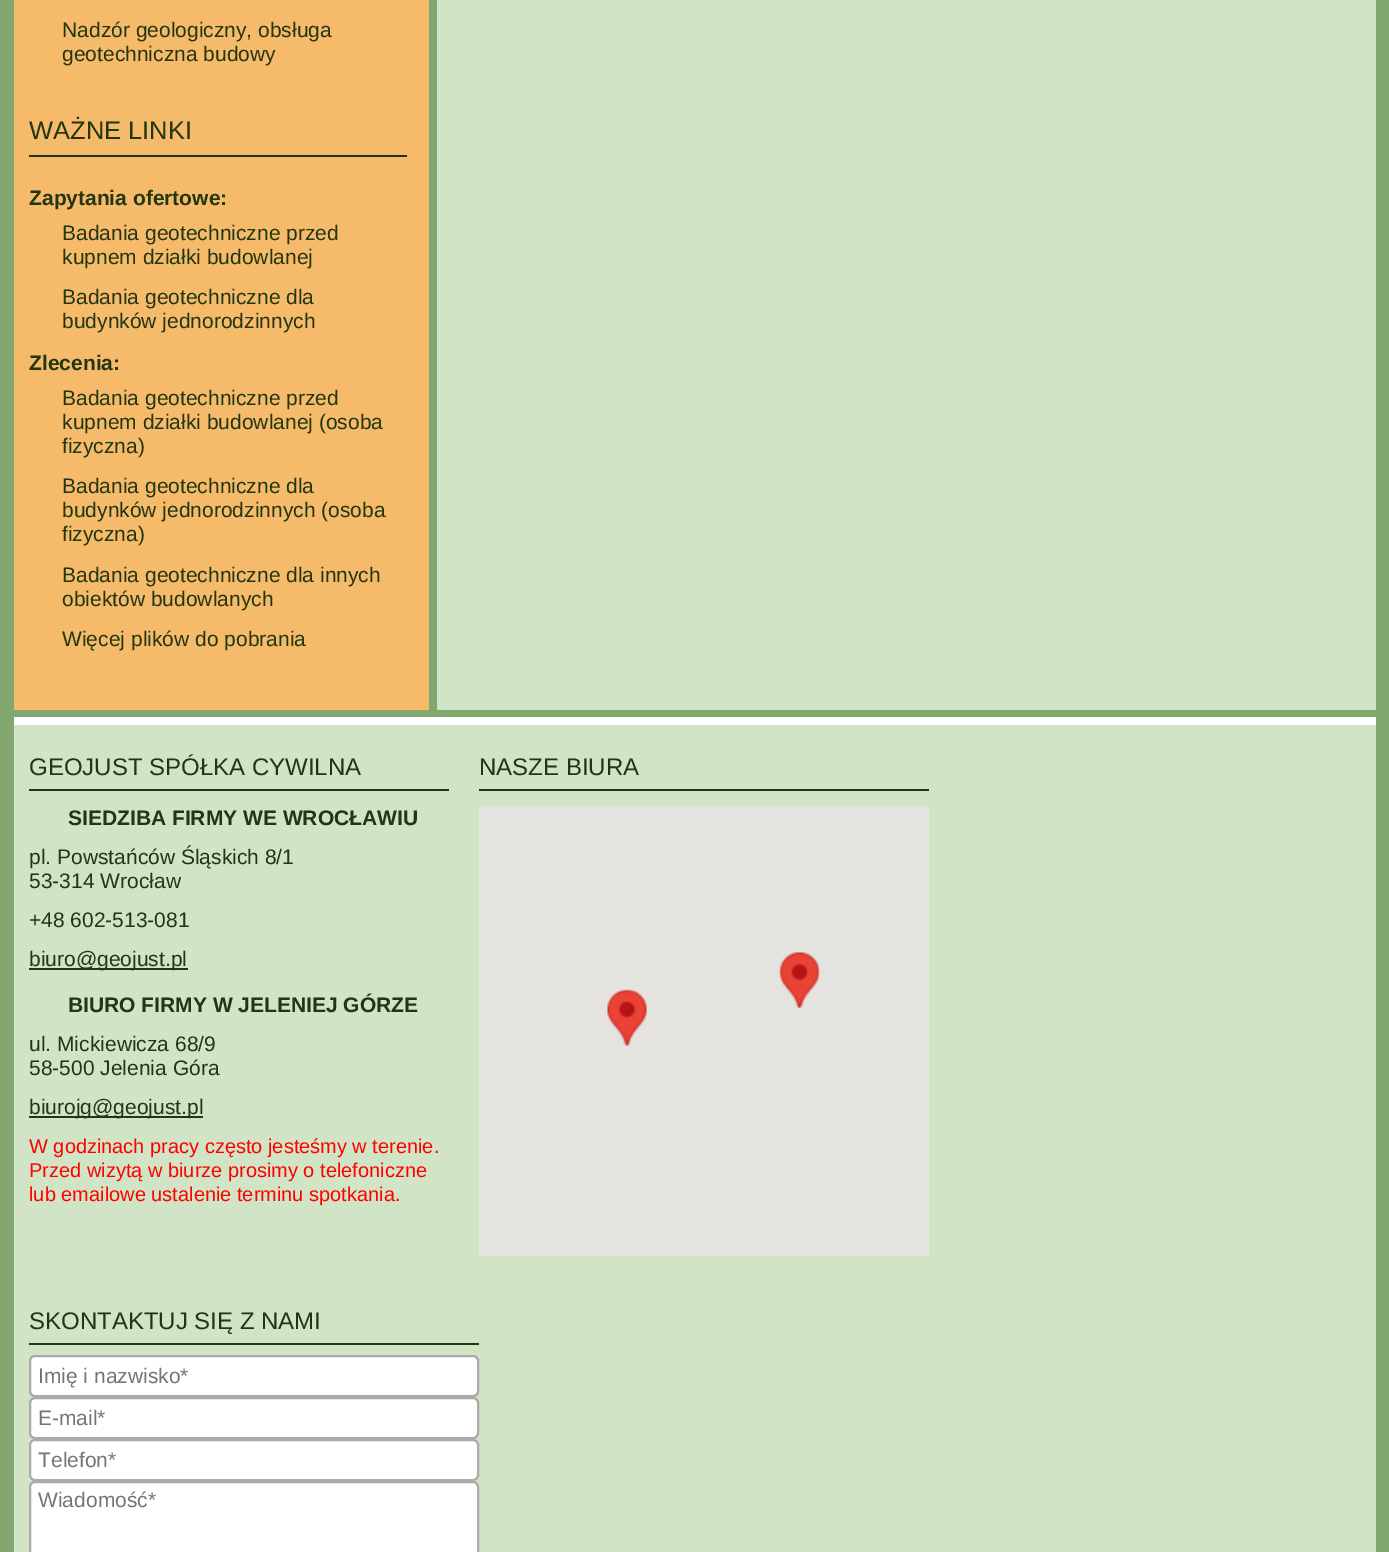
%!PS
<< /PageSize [1389 1552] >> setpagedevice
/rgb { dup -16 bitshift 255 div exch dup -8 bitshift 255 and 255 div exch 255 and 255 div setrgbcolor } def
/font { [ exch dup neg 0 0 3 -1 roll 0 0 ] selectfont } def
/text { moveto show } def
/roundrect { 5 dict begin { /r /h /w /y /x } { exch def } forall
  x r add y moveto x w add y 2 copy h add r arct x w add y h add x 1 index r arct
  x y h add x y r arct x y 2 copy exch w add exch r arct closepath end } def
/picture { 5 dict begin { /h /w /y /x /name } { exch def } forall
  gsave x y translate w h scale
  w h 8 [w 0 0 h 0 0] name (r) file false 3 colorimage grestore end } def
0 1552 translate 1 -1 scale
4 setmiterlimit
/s1 { /LiberationSans-Regular 21 font 16#233611 rgb } def
/s2 { /LiberationSans-Regular 25.5 font 16#233611 rgb } def
/s3 { /LiberationSans-Bold 21 font 16#233611 rgb } def
/s4 { /LiberationSans-Regular 24 font 16#233611 rgb } def
/s5 { /LiberationSans-Regular 20 font 16#FF0000 rgb } def
/s6 { /LiberationSans-Regular 21 font 16#757575 rgb } def
16#83A86F rgb
0 0 1389 1552 rectfill
16#F5BA6A rgb
14 0 415 710 rectfill
s1
(Nadzór geologiczny, obsługa) 62 37 text
(geotechniczna budowy) 62 61 text
29 155 378 2 rectfill
s2
(WAŻNE LINKI) 29 139 text
s3
(Zapytania ofertowe:) 29 205 text
s1
(Badania geotechniczne przed) 62 240 text
(kupnem działki budowlanej) 62 264 text
(Badania geotechniczne dla) 62 304 text
(budynków jednorodzinnych) 62 328 text
s3
(Zlecenia:) 29 370 text
s1
(Badania geotechniczne przed) 62 405 text
(kupnem działki budowlanej \(osoba) 62 429 text
(fizyczna\)) 62 453 text
(Badania geotechniczne dla) 62 493 text
(budynków jednorodzinnych \(osoba) 62 517 text
(fizyczna\)) 62 541 text
(Badania geotechniczne dla innych) 62 582 text
(obiektów budowlanych) 62 606 text
(Więcej plików do pobrania) 62 646 text
16#D1E5C6 rgb
437 0 939 710 rectfill
14 725 1362 827 rectfill
16#FFFFFF rgb
14 717 1362 8 rectfill
16#233611 rgb
29 789 420 2 rectfill
s4
(GEOJUST SPÓŁKA CYWILNA) 29 775 text
s3
(SIEDZIBA FIRMY WE WROCŁAWIU) 68 825 text
s1
(pl. Powstańców Śląskich 8/1) 29 864 text
(53-314 Wrocław) 29 888 text
(+48 602-513-081) 29 927 text
29 968 159 2 rectfill
(biuro@geojust.pl) 29 966 text
s3
(BIURO FIRMY W JELENIEJ GÓRZE) 68 1012 text
s1
(ul. Mickiewicza 68/9) 29 1051 text
(58-500 Jelenia Góra) 29 1075 text
29 1116 174 2 rectfill
(biurojg@geojust.pl) 29 1114 text
s5
(W godzinach pracy często jesteśmy w terenie.) 29 1153 text
(Przed wizytą w biurze prosimy o telefoniczne) 29 1177 text
(lub emailowe ustalenie terminu spotkania.) 29 1201 text
16#233611 rgb
479 789 450 2 rectfill
s4
(NASZE BIURA) 479 775 text
16#E5E3DF rgb
479 806 450 450 rectfill
(pic1.raw) 779 952 41 57 picture
(pic2.raw) 607 989 40 57 picture
16#233611 rgb
29 1343 450 2 rectfill
(SKONTAKTUJ SIĘ Z NAMI) 29 1329 text
16#FFFFFF rgb
30 1356 448 40 5 roundrect gsave fill grestore
16#AAAAAA rgb
2 setlinewidth
stroke
s6
(Imię i nazwisko*) 38 1383 text
16#FFFFFF rgb
30 1398 448 40 5 roundrect gsave fill grestore
16#AAAAAA rgb
stroke
s6
(E-mail*) 38 1425 text
16#FFFFFF rgb
30 1440 448 40 5 roundrect gsave fill grestore
16#AAAAAA rgb
stroke
s6
(Telefon*) 38 1467 text
16#FFFFFF rgb
30 1482 448 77 5 roundrect gsave fill grestore
16#AAAAAA rgb
stroke
s6
(Wiadomość*) 38 1507 text
showpage
